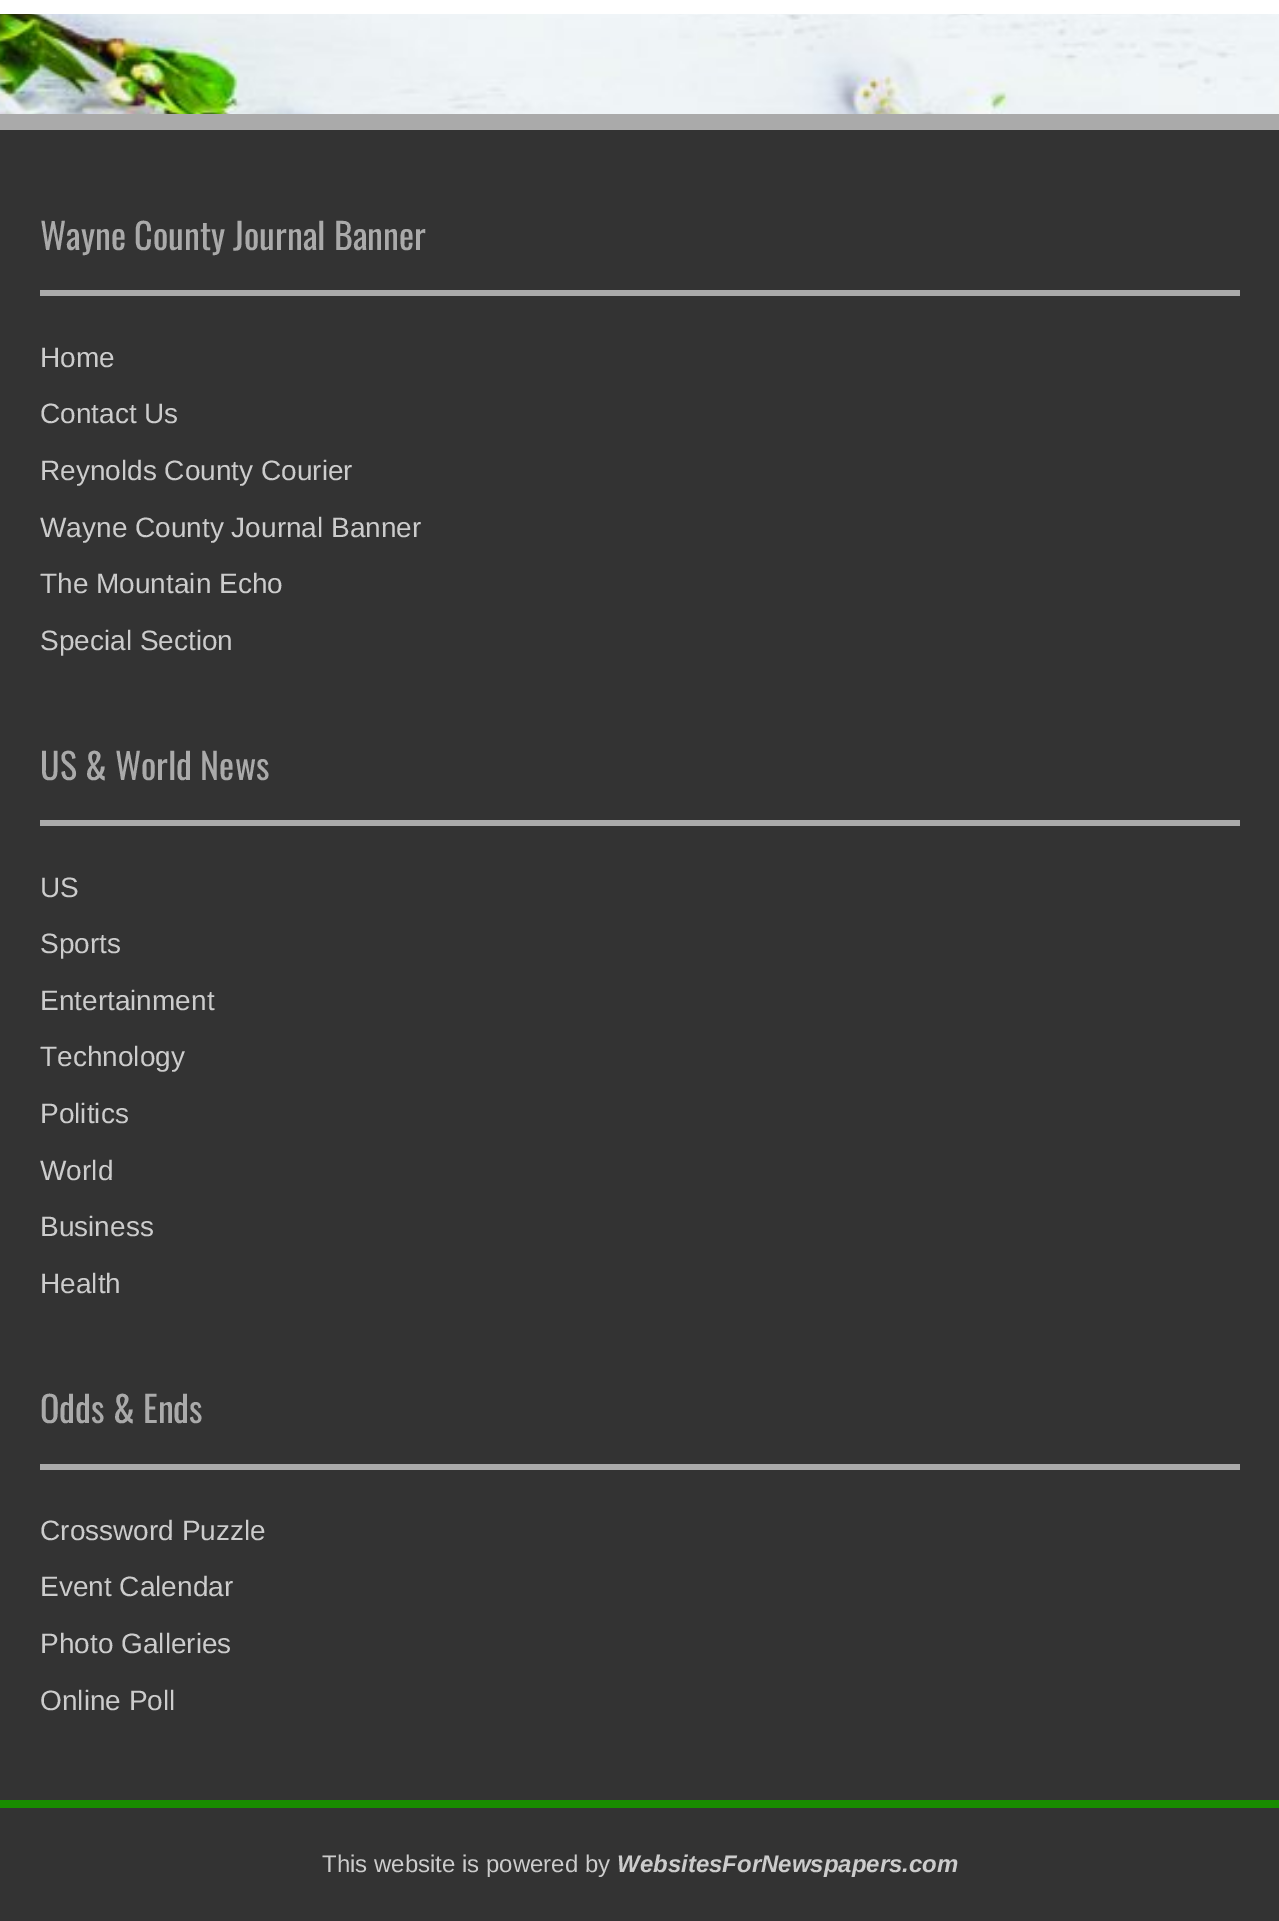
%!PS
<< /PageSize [1279 1921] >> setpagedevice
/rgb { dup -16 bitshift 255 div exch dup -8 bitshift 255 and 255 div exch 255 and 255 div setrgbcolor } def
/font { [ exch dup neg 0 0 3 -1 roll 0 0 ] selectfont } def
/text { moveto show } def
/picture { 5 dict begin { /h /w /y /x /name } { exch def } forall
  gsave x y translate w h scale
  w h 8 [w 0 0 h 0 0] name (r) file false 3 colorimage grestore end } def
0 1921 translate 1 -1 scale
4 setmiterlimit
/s1 { /Oswald-Regular 36 font 16#AAAAAA rgb } def
/s2 { /LiberationSans-Regular 28 font 16#CCCCCC rgb } def
/s3 { /LiberationSans-Regular 24 font 16#CCCCCC rgb } def
/s4 { /LiberationSans-BoldItalic 24 font 16#CCCCCC rgb } def
16#FFFFFF rgb
0 0 1279 1921 rectfill
(pic1.raw) 0 14 1279 100 picture
16#333333 rgb
0 130 1279 1670 rectfill
16#AAAAAA rgb
0 114 1279 16 rectfill
40 290 1200 6 rectfill
s1
(Wayne County Journal Banner) 40 250 text
s2
(Home) 40 367 text
(Contact Us) 40 423 text
(Reynolds County Courier) 40 480 text
(Wayne County Journal Banner) 40 537 text
(The Mountain Echo) 40 593 text
(Special Section) 40 650 text
16#AAAAAA rgb
40 820 1200 6 rectfill
s1
(US & World News) 40 780 text
s2
(US) 40 897 text
(Sports) 40 953 text
(Entertainment) 40 1010 text
(Technology) 40 1066 text
(Politics) 40 1123 text
(World) 40 1180 text
(Business) 40 1236 text
(Health) 40 1293 text
16#AAAAAA rgb
40 1464 1200 6 rectfill
s1
(Odds & Ends) 40 1423 text
s2
(Crossword Puzzle) 40 1540 text
(Event Calendar) 40 1596 text
(Photo Galleries) 40 1653 text
(Online Poll) 40 1710 text
16#333333 rgb
0 1808 1279 113 rectfill
16#198C00 rgb
0 1800 1279 8 rectfill
s3
(This website is powered by) 322 1872 text
s4
(WebsitesForNewspapers.com) 617 1872 text
showpage
